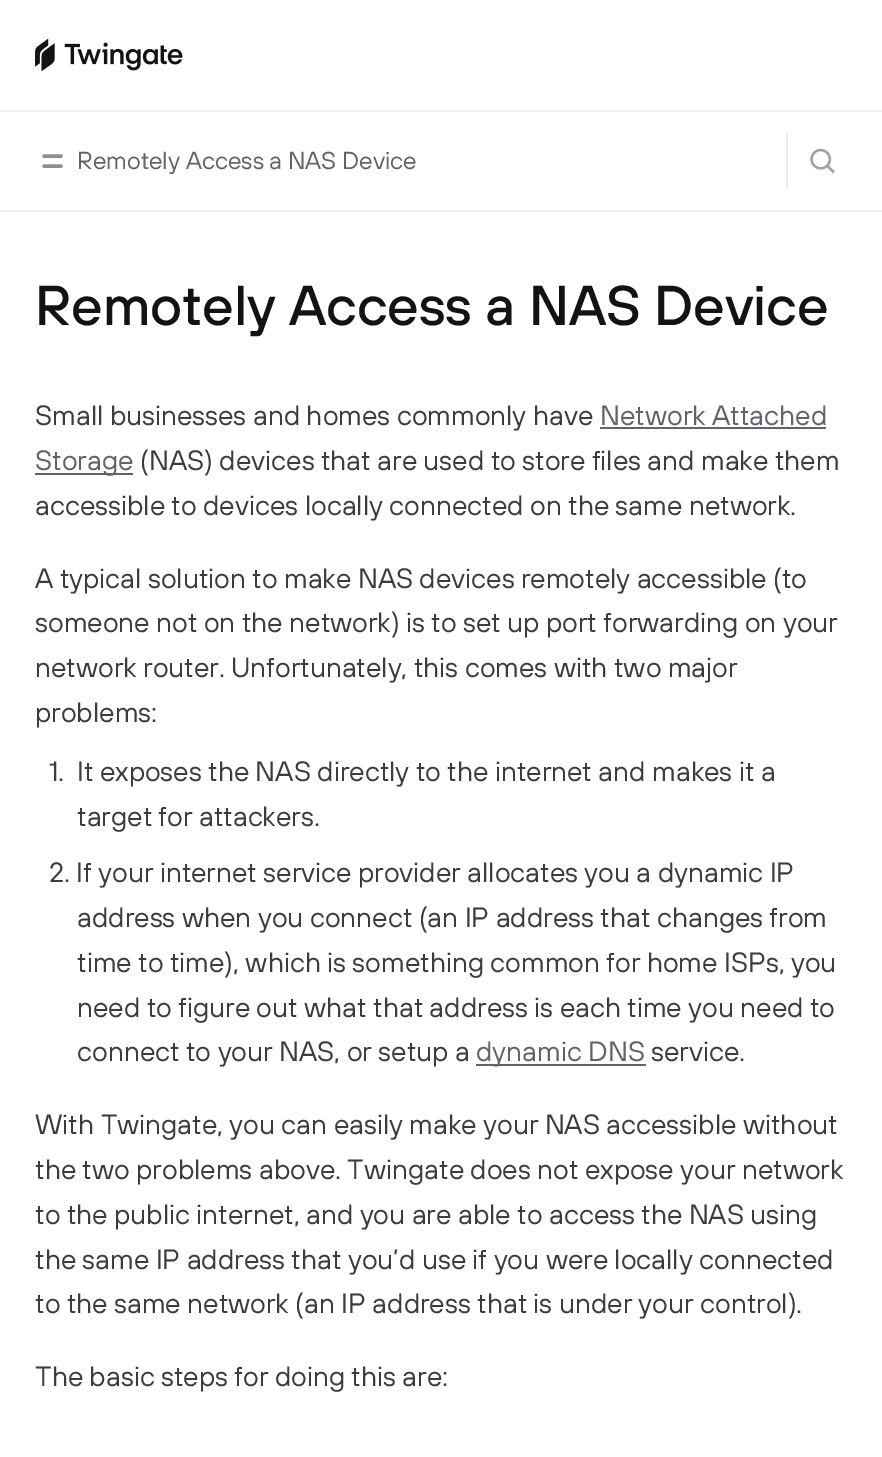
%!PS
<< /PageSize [882 1457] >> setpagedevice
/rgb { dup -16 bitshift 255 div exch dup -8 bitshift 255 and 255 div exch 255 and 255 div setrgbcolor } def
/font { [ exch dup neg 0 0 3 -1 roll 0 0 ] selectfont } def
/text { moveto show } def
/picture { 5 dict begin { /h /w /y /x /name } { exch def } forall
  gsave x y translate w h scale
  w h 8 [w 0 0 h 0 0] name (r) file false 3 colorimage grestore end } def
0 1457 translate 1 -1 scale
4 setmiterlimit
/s1 { /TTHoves-Regular 24.5 font 16#61626B rgb } def
/s2 { /TTHoves-Regular 28 font 16#3A3D40 rgb } def
/s3 { /TTHoves-Regular 28 font 16#61626B rgb } def
16#FFFFFF rgb
0 0 882 1457 rectfill
16#EFF0F2 rgb
0 110 882 2 rectfill
(pic1.raw) 35 39 148 33 picture
0 210 882 2 rectfill
16#8D8D96 rgb
3.5 setlinewidth
1 setlinecap
44 156 moveto 61 156 lineto 44 166 moveto 61 166 lineto stroke
s1
(Remotely Access a NAS Device) 77 169 text
16#EBEBEB rgb
786 133 2 56 rectfill
(pic2.raw) 810 148 25 26 picture
/TTHoves-Medium 56 font
16#121315 rgb
35 325 moveto -0.2 0 (Remotely Access a NAS Device) ashow
s2
(Small businesses and homes commonly have) 35 425 text
s3
(Network Attached) 600 425 text
600 427 226 2 rectfill
35 473 98 2 rectfill
(Storage) 35 470 text
s2
(\(NAS\) devices that are used to store files and make them) 140 470 text
(accessible to devices locally connected on the same network.) 35 515 text
(A typical solution to make NAS devices remotely accessible \(to) 35 588 text
(someone not on the network\) is to set up port forwarding on your) 35 632 text
(network router. Unfortunately, this comes with two major) 35 677 text
(problems:) 35 722 text
(1.) 49 781 text
(It exposes the NAS directly to the internet and makes it a) 77 781 text
(target for attackers.) 77 826 text
(2. If your internet service provider allocates you a dynamic IP) 49 882 text
(address when you connect \(an IP address that changes from) 77 927 text
(time to time\), which is something common for home ISPs, you) 77 972 text
(need to figure out what that address is each time you need to) 77 1017 text
(connect to your NAS, or setup a) 77 1061 text
16#61626B rgb
476 1064 170 2 rectfill
(dynamic DNS) 476 1061 text
s2
(service.) 651 1061 text
(With Twingate, you can easily make your NAS accessible without) 35 1134 text
(the two problems above. Twingate does not expose your network) 35 1179 text
(to the public internet, and you are able to access the NAS using) 35 1224 text
(the same IP address that you’d use if you were locally connected) 35 1269 text
(to the same network \(an IP address that is under your control\).) 35 1313 text
(The basic steps for doing this are:) 35 1386 text
showpage
